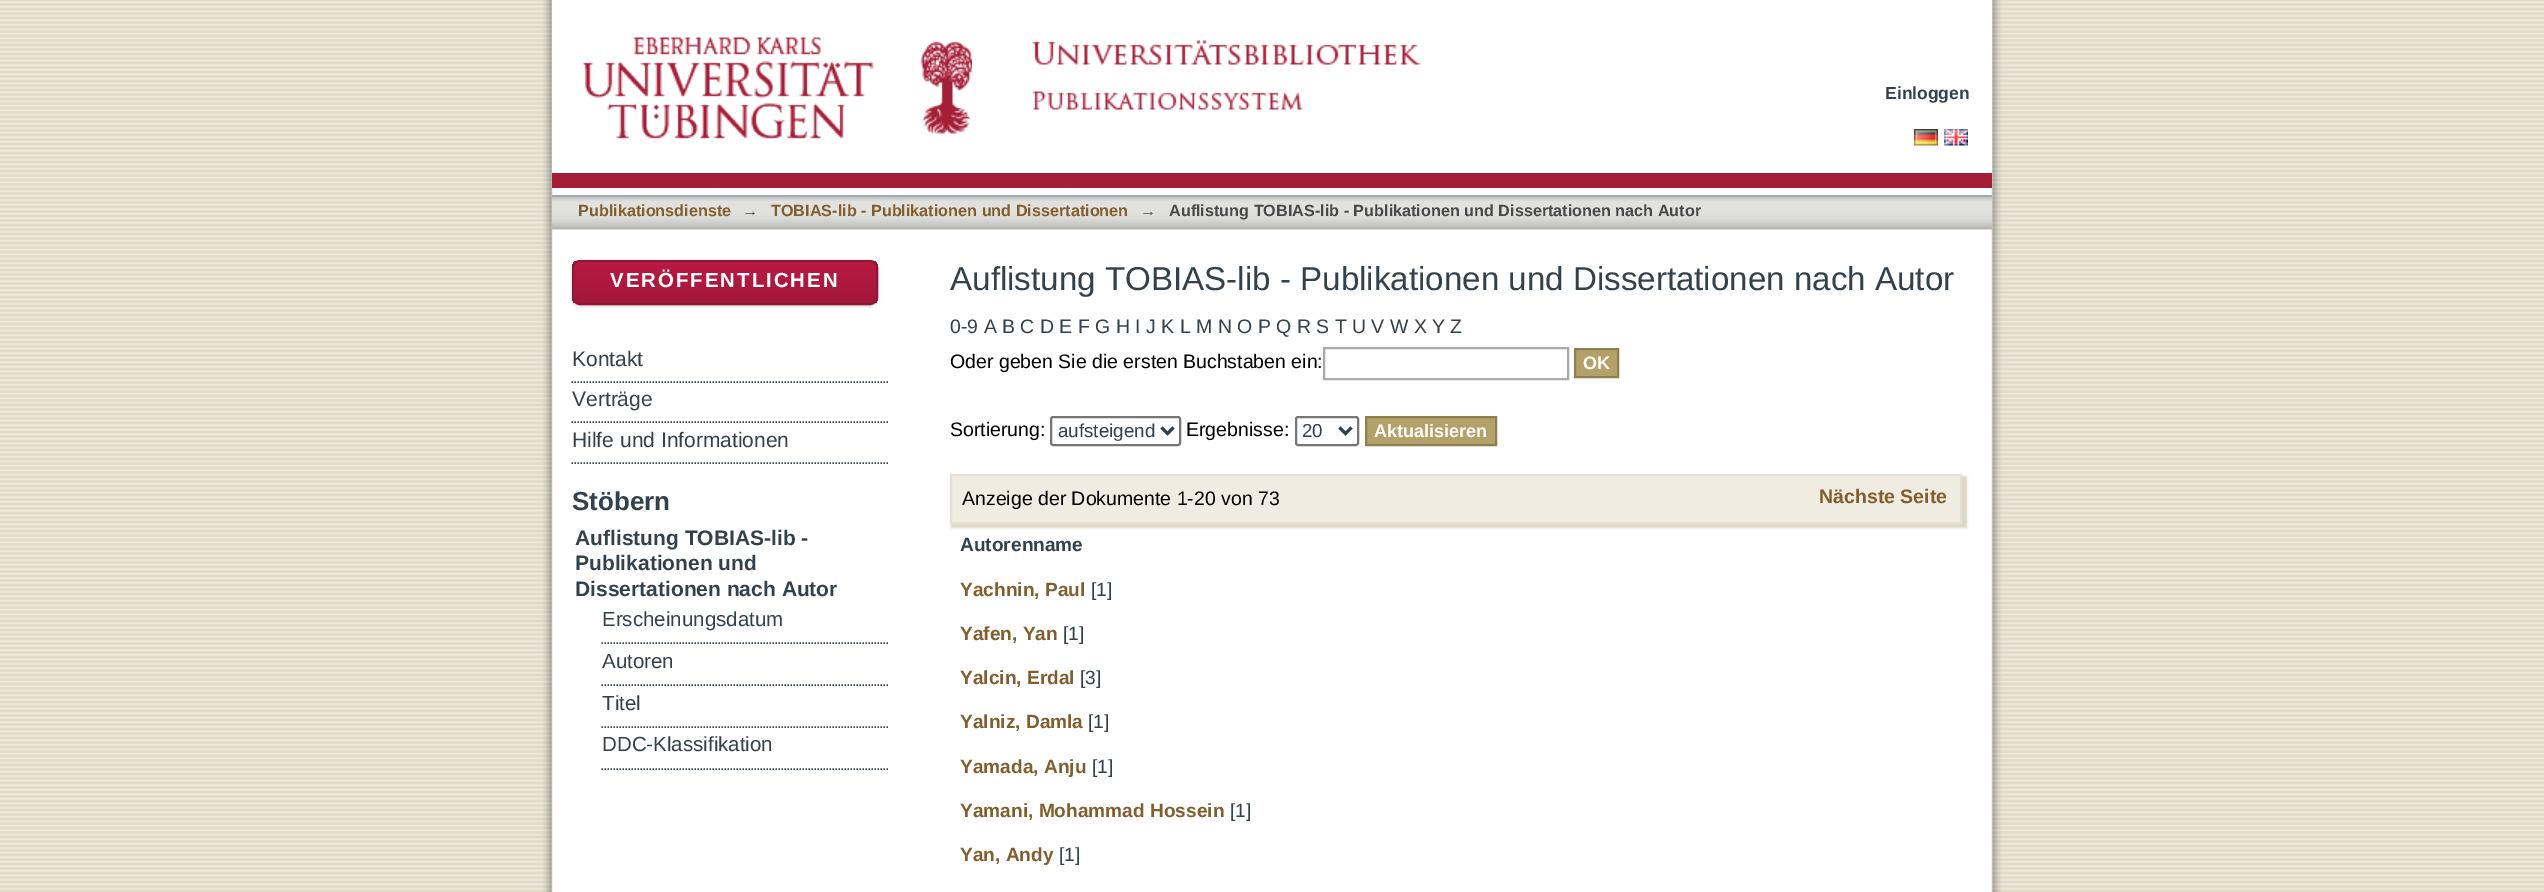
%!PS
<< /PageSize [2544 892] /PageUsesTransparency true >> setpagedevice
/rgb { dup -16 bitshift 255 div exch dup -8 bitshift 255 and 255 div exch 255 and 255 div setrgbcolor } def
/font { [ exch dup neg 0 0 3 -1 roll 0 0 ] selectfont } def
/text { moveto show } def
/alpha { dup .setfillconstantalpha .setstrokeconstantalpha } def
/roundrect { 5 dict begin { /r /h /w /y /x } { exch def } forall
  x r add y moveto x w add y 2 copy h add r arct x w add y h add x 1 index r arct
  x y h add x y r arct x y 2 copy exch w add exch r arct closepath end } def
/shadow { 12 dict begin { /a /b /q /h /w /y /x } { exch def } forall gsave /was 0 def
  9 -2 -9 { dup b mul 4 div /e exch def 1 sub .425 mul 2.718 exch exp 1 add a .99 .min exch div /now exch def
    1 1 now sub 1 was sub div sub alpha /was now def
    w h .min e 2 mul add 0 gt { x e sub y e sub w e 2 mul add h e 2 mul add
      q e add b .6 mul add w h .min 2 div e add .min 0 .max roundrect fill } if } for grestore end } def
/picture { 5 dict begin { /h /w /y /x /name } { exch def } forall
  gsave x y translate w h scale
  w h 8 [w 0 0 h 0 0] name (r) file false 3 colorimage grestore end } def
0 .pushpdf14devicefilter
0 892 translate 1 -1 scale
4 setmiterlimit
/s1 { /LiberationSans-Bold 17.5 font 16#32414B rgb } def
/s2 { /LiberationSans-Bold 16.2 font 16#825D2D rgb } def
/s3 { /LiberationSans-Bold 16.2 font 16#484848 rgb } def
/s4 { /LiberationSans-Regular 21 font 16#32414B rgb } def
/s5 { /LiberationSans-Bold 26 font 16#32414B rgb } def
/s6 { /LiberationSans-Bold 21 font 16#32414B rgb } def
/s7 { /LiberationSans-Regular 20.5 font 16#32414B rgb } def
/s8 { /LiberationSans-Regular 33.15 font 16#32414B rgb } def
/s9 { /LiberationSans-Regular 19.5 font 16#32414B rgb } def
/s10 { /LiberationSans-Regular 19.5 font 16#000000 rgb } def
/s11 { /LiberationSans-Bold 18 font 16#FFFFFF rgb } def
/s12 { /LiberationSans-Regular 18.75 font 16#32414B rgb } def
/s13 { /LiberationSans-Bold 19.5 font 16#825D2D rgb } def
/s14 { /LiberationSans-Bold 19.1 font 16#32414B rgb } def
/s15 { /LiberationSans-Bold 19.1 font 16#825D2D rgb } def
/s16 { /LiberationSans-Regular 19.1 font 16#32414B rgb } def
16#FFFFFF rgb
0 0 2544 892 rectfill
(pic1.raw) 0 0 2544 892 picture
(pic2.raw) 541 0 1462 892 picture
552 0 1440 173 rectfill
16#A51E37 rgb
552 173 1440 15 rectfill
(pic3.raw) 583 37 389 102 picture
(pic4.raw) 1031 40 390 70 picture
s1
(Einloggen) 1885 99 text
(pic5.raw) 552 197 1440 33 picture
16#9CACBA rgb
552 195 1440 2 rectfill
(pic6.raw) 1914 129 24 17 picture
(pic7.raw) 1944 129 24 17 picture
s2
(Publikationsdienste) 578 216 text
s3
(→) 742 216 text
s2
(TOBIAS-lib - Publikationen und Dissertationen) 771 216 text
s3
(→) 1140 216 text
(Auflistung TOBIAS-lib - Publikationen und Dissertationen nach Autor) 1169 216 text
16#000000 rgb
572 261 306 45 8 1.5 0.2 shadow
gsave
572 260 306 45 8 roundrect clip newpath
gsave 572 261 moveto 878 261 lineto 878 303 lineto 572 303 lineto closepath clip newpath
<< /ShadingType 2 /ColorSpace /DeviceRGB /Coords [725 261 725 303] /Extend [true true] /Function << /FunctionType 2 /Domain [0 1] /C0 [0.733 0.102 0.263] /C1 [0.635 0.094 0.231] /N 1 >> >> shfill grestore
grestore
16#901735 rgb
2 setlinewidth
573 261 304 43 7 roundrect stroke
/LiberationSans-Bold 20.4 font
16#FFFFFF rgb
610 287 moveto 2 0 (VERÖFFENTLICHEN) ashow
16#32414B rgb
1.5 setlinewidth
[1.5 1.5] 0 setdash
571.5 382 moveto 889.5 382 lineto stroke
s4
(Kontakt) 572 366 text
571.5 422 moveto 889.5 422 lineto stroke
(Verträge) 572 406 text
571.5 463 moveto 889.5 463 lineto stroke
(Hilfe und Informationen) 572 447 text
s5
(Stöbern) 572 510 text
s6
(Auflistung TOBIAS-lib -) 575 545 text
(Publikationen und) 575 570 text
(Dissertationen nach Autor) 575 596 text
601.5 643 moveto 889.5 643 lineto stroke
s7
(Erscheinungsdatum) 602 626 text
601.5 685 moveto 889.5 685 lineto stroke
(Autoren) 602 668 text
601.5 727 moveto 889.5 727 lineto stroke
(Titel) 602 710 text
601.5 769 moveto 889.5 769 lineto stroke
(DDC-Klassifikation) 602 751 text
s8
(Auflistung TOBIAS-lib - Publikationen und Dissertationen nach Autor) 950 290 text
s9
(0-9 A B C D E F G H I J K L M N O P Q R S T U V W X Y Z) 950 333 text
s10
(Oder geben Sie die ersten Buchstaben ein:) 950 368 text
16#AAAAAA rgb
2 setlinewidth
[] 0 setdash
1324 348 244 31 rectstroke
16#B4A069 rgb
1575 349 moveto 1618 349 lineto 1618 377 lineto 1575 377 lineto closepath gsave fill grestore
16#8F7E4F rgb
stroke
s11
(OK) 1583 369 text
s10
(Sortierung:) 950 436 text
16#767676 rgb
1051 417 129 28 2 roundrect stroke
16#32414B rgb
3 setlinewidth
1161.5 427.5 moveto 1167.5 433.5 lineto 1173.5 427.5 lineto stroke
s12
(aufsteigend) 1058 437 text
s10
(Ergebnisse:) 1186 436 text
16#767676 rgb
2 setlinewidth
1296 417 62 28 2 roundrect stroke
16#32414B rgb
3 setlinewidth
1339.5 427.5 moveto 1345.5 433.5 lineto 1351.5 427.5 lineto stroke
s12
(20) 1302 437 text
16#B4A069 rgb
1366 417 moveto 1496 417 lineto 1496 445 lineto 1366 445 lineto closepath gsave fill grestore
16#8F7E4F rgb
2 setlinewidth
stroke
s11
(Aktualisieren) 1374 437 text
16#DED6C4 rgb
951 476 1016 52 0 1 1 shadow
16#F0ECE1 rgb
951 475 moveto 1961 475 lineto 1961 523 lineto 951 523 lineto closepath gsave fill grestore
16#E6E0D4 rgb
stroke
s10
(Anzeige der Dokumente 1-20 von 73) 962 505 text
s13
(Nächste Seite) 1819 503 text
s14
(Autorenname) 960 551 text
s15
(Yachnin, Paul) 960 596 text
s16
([1]) 1091 596 text
s15
(Yafen, Yan) 960 640 text
s16
([1]) 1063 640 text
s15
(Yalcin, Erdal) 960 684 text
s16
([3]) 1080 684 text
s15
(Yalniz, Damla) 960 728 text
s16
([1]) 1088 728 text
s15
(Yamada, Anju) 960 773 text
s16
([1]) 1092 773 text
s15
(Yamani, Mohammad Hossein) 960 817 text
s16
([1]) 1230 817 text
s15
(Yan, Andy) 960 861 text
s16
([1]) 1059 861 text
.poppdf14devicefilter showpage
